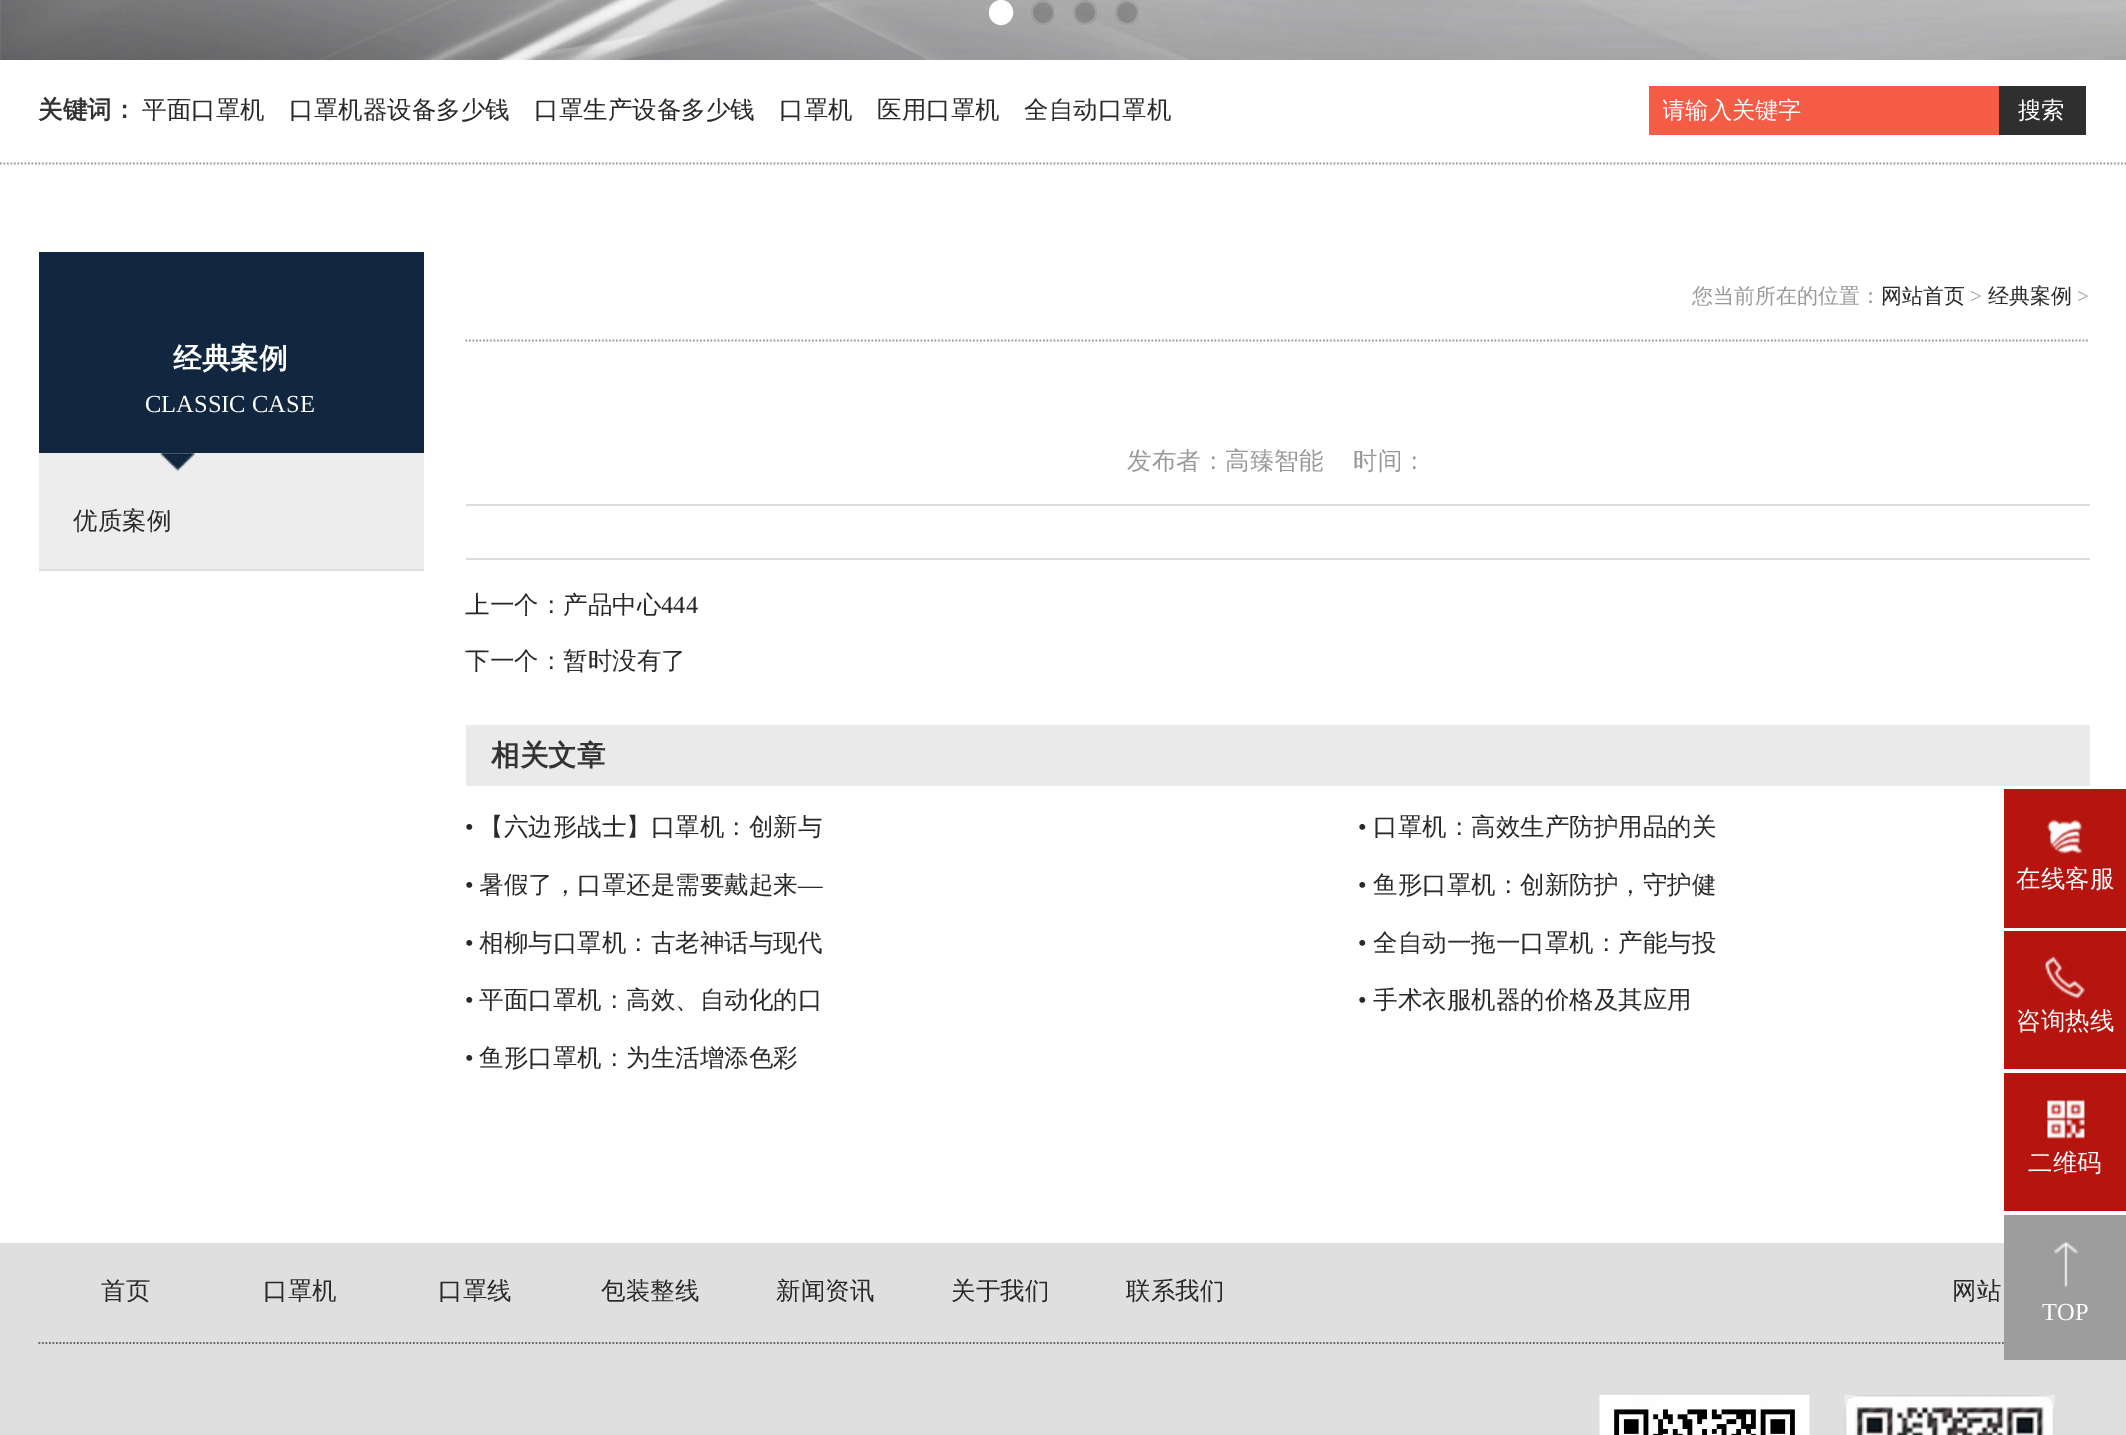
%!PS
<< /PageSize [2126 1435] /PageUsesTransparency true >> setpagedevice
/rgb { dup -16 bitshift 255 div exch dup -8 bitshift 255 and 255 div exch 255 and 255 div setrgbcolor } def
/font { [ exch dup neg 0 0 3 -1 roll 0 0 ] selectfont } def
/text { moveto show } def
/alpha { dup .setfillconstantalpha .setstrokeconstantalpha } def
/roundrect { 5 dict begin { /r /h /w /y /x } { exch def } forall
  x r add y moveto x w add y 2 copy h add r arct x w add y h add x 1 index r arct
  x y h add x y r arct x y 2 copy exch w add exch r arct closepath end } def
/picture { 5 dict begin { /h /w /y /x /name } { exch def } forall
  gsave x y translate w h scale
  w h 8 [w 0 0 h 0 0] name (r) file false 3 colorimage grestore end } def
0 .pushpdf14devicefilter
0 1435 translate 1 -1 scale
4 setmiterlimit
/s1 { /WenQuanYiZenHei-Bold 24.5 font 16#333333 rgb } def
/s2 { /WenQuanYiZenHei-Medium 24.5 font 16#292929 rgb } def
/s3 { /WenQuanYiZenHei-Medium 23.25 font 16#FFFFFF rgb } def
/s4 { /WenQuanYiZenHei-Bold 28.5 font 16#FFFFFF rgb } def
/s5 { /LiberationSerif-Regular 24.5 font 16#FFFFFF rgb } def
/s6 { /WenQuanYiZenHei-Medium 21 font 16#999999 rgb } def
/s7 { /WenQuanYiZenHei-Medium 21 font 16#292929 rgb } def
/s8 { /LiberationSerif-Regular 21 font 16#999999 rgb } def
/s9 { /WenQuanYiZenHei-Medium 24.5 font 16#999999 rgb } def
/s10 { /LiberationSerif-Regular 24.5 font 16#292929 rgb } def
/s11 { /WenQuanYiZenHei-Bold 28.5 font 16#333333 rgb } def
/s12 { /WenQuanYiZenHei-Medium 24.5 font 16#FFFFFF rgb } def
16#FFFFFF rgb
0 0 2126 1435 rectfill
(pic1.raw) 0 0 2126 60 picture
990 1 22 23 11 roundrect gsave fill grestore
2 setlinewidth
stroke
0.2 alpha
16#000000 rgb
1031 0 24 25 12 roundrect fill
16#FFFFFF rgb
1032 1 22 23 11 roundrect stroke
16#000000 rgb
1073 0 24 25 12 roundrect fill
16#FFFFFF rgb
1074 1 22 23 11 roundrect stroke
16#000000 rgb
1115 0 24 25 12 roundrect fill
16#FFFFFF rgb
1116 1 22 23 11 roundrect stroke
1 alpha
s1
(关键词：) 38 118 text
s2
(平面口罩机) 142 118 text
(口罩机器设备多少钱) 289 118 text
(口罩生产设备多少钱) 534 118 text
(口罩机) 779 118 text
(医用口罩机) 877 118 text
(全自动口罩机) 1024 118 text
16#F45C45 rgb
1649 86 350 49 rectfill
gsave
1663 95 336 31 rectclip
s3
(请输入关键字) 1662 118 text
grestore
16#2F2F2F rgb
1999 86 87 49 rectfill
s3
(搜索) 2018 118 text
16#999999 rgb
1.8 setlinewidth
[1.75 1.75] 0 setdash
0 163.5 moveto 2126 163.5 lineto stroke
16#11273F rgb
39 252 385 201 rectfill
s4
(经典案例) 173 368 text
s5
(CLASSIC CASE) 145 412 text
16#EDEDED rgb
39 453 385 116 rectfill
(pic2.raw) 158 453 40 19 picture
16#DDDDDD rgb
39 569 385 2 rectfill
s2
(优质案例) 73 529 text
16#999999 rgb
465.5 340.5 moveto 2089.5 340.5 lineto stroke
s6
(您当前所在的位置：) 1692 303 text
s7
(网站首页) 1881 303 text
s8
(>) 1970 303 text
s7
(经典案例) 1988 303 text
s8
(>) 2077 303 text
16#DDDDDD rgb
466 504 1624 2 rectfill
s9
(发布者：高臻智能) 1127 469 text
(时间：) 1353 469 text
16#DDDDDD rgb
466 558 1624 2 rectfill
s2
(上一个：产品中心) 465 613 text
s10
(444) 661 613 text
s2
(下一个：暂时没有了) 465 669 text
16#EAEAEA rgb
466 725 1624 61 rectfill
s11
(相关文章) 491 765 text
s10
(•) 465 835 text
s2
(【六边形战士】口罩机：创新与) 479 835 text
s10
(•) 1358 835 text
s2
(口罩机：高效生产防护用品的关) 1373 835 text
s10
(•) 465 893 text
s2
(暑假了，口罩还是需要戴起来) 479 893 text
s10
(—) 798 893 text
(•) 1358 893 text
s2
(鱼形口罩机：创新防护，守护健) 1373 893 text
s10
(•) 465 951 text
s2
(相柳与口罩机：古老神话与现代) 479 951 text
s10
(•) 1358 951 text
s2
(全自动一拖一口罩机：产能与投) 1373 951 text
s10
(•) 465 1008 text
s2
(平面口罩机：高效、自动化的口) 479 1008 text
s10
(•) 1358 1008 text
s2
(手术衣服机器的价格及其应用) 1373 1008 text
s10
(•) 465 1066 text
s2
(鱼形口罩机：为生活增添色彩) 479 1066 text
16#DFDFDF rgb
0 1243 2126 192 rectfill
16#666666 rgb
38.5 1343 moveto 2089.5 1343 lineto stroke
s2
(首页) 101 1299 text
(口罩机) 263 1299 text
(口罩线) 438 1299 text
(包装整线) 601 1299 text
(新闻资讯) 776 1299 text
(关于我们) 951 1299 text
(联系我们) 1126 1299 text
(网站) 1952 1299 text
(pic3.raw) 1599 1395 211 40 picture
(pic4.raw) 1844 1395 211 40 picture
16#B6140F rgb
2004 789 122 139 rectfill
(pic5.raw) 2047 819 36 35 picture
s12
(在线客服) 2016 887 text
16#B6140F rgb
2004 931 122 138 rectfill
(pic6.raw) 2044 956 42 44 picture
s12
(咨询热线) 2016 1029 text
16#B6140F rgb
2004 1073 122 138 rectfill
(pic7.raw) 2044 1098 42 44 picture
s12
(二维码) 2028 1171 text
16#9D9D9D rgb
2004 1215 122 145 rectfill
(pic8.raw) 2046 1241 38 49 picture
s5
(TOP) 2042 1320 text
.poppdf14devicefilter showpage
